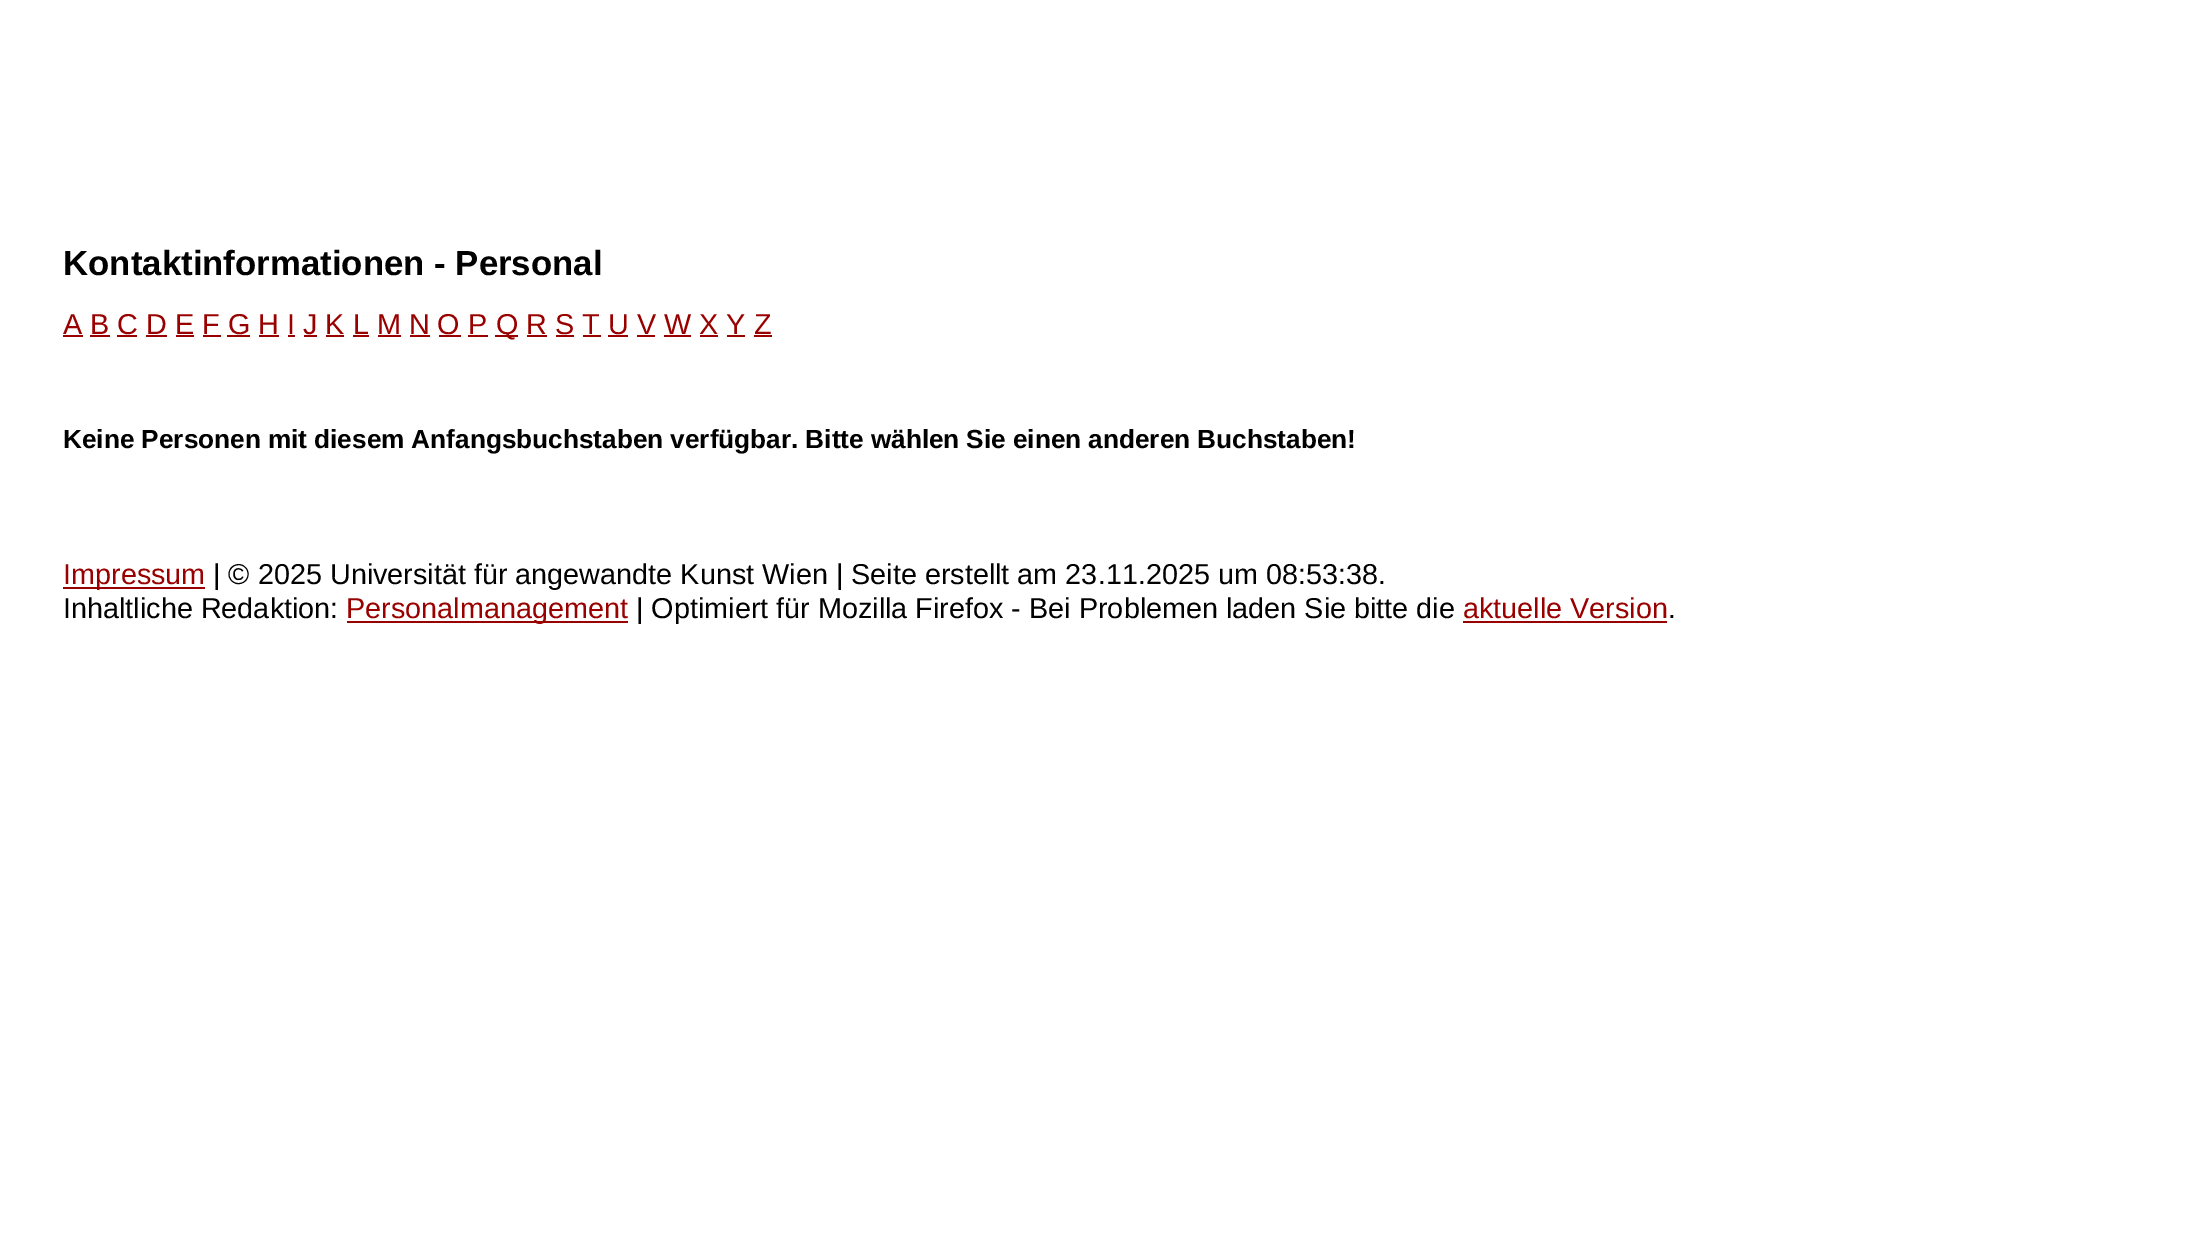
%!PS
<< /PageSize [2201 1239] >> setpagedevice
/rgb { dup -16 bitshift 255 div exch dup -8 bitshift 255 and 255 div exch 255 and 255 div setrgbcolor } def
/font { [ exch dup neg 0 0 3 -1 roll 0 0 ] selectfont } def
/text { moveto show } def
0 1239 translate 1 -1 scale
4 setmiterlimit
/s1 { /LiberationSans-Bold 34.8 font 16#000000 rgb } def
/s2 { /LiberationSans-Regular 28.8 font 16#990000 rgb } def
/s3 { /LiberationSans-Regular 28.8 font 16#000000 rgb } def
16#FFFFFF rgb
0 0 2201 1239 rectfill
s1
(Kontaktinformationen - Personal) 63 275 text
s2
(A B C D E F G H I J K L M N O P) 63 334 text
63 335 20 2 rectfill
495 335 23 2 rectfill
(Q R S T U V W X Y Z) 496 334 text
90 335 20 2 rectfill
117 335 20 2 rectfill
146 335 21 2 rectfill
176 335 18 2 rectfill
203 335 18 2 rectfill
227 335 23 2 rectfill
259 335 20 2 rectfill
288 335 7 2 rectfill
304 335 13 2 rectfill
326 335 18 2 rectfill
353 335 16 2 rectfill
378 335 23 2 rectfill
410 335 20 2 rectfill
439 335 22 2 rectfill
468 335 20 2 rectfill
527 335 20 2 rectfill
556 335 18 2 rectfill
583 335 18 2 rectfill
608 335 20 2 rectfill
637 335 18 2 rectfill
664 335 27 2 rectfill
700 335 18 2 rectfill
727 335 18 2 rectfill
754 335 18 2 rectfill
/LiberationSans-Bold 26.2 font
16#000000 rgb
63 448 moveto -0.25 0 32 (Keine Personen mit diesem Anfangsbuchstaben verfügbar. Bitte wählen Sie einen anderen Buchstaben!) widthshow
16#990000 rgb
63 587 142 2 rectfill
s2
(Impressum) 63 584 text
s3
(| © 2025 Universität für angewandte Kunst Wien | Seite erstellt am 23.11.2025 um 08:53:38.) 213 584 text
(Inhaltliche Redaktion:) 63 618 text
16#990000 rgb
347 621 281 2 rectfill
(Personalmanagement) 346 618 text
s3
(| Optimiert für Mozilla Firefox - Bei Problemen laden Sie bitte die) 636 618 text
s2
(aktuelle Version) 1463 618 text
1463 621 204 2 rectfill
s3
(.) 1668 618 text
showpage
